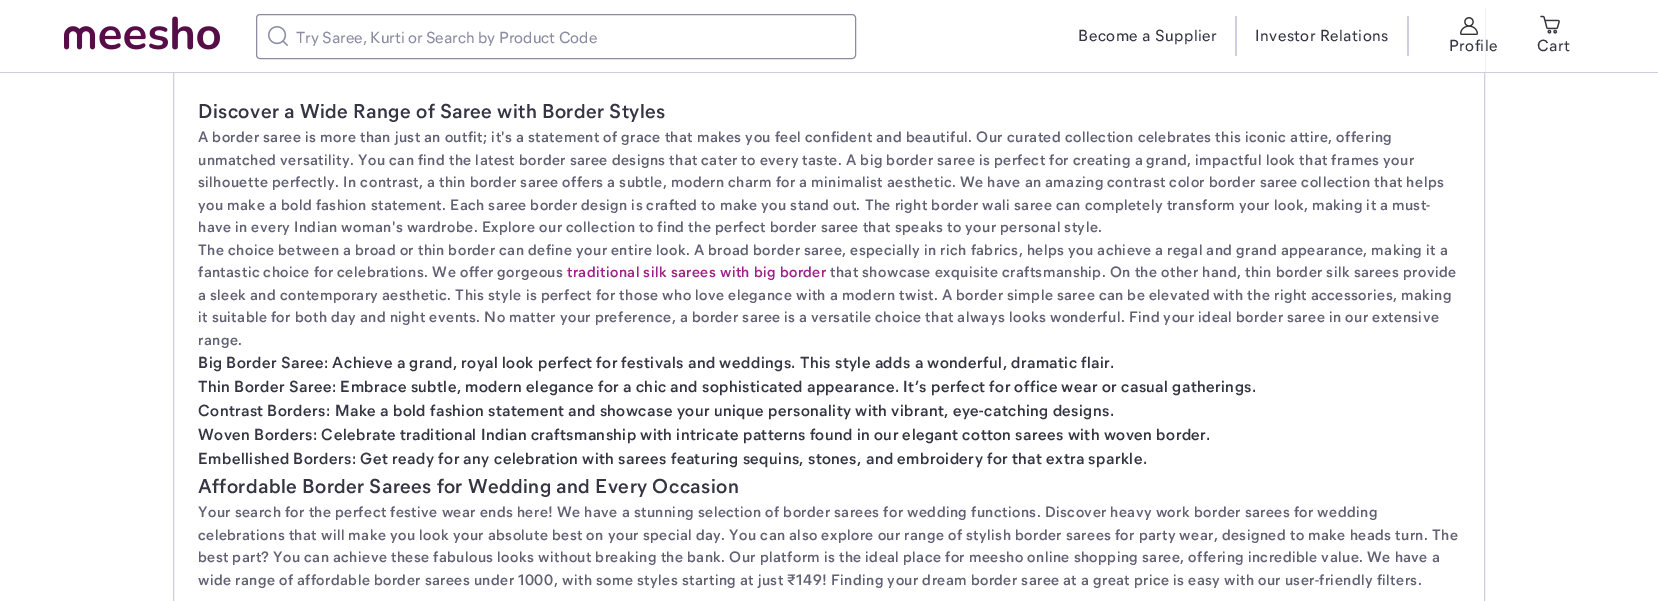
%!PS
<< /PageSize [1658 601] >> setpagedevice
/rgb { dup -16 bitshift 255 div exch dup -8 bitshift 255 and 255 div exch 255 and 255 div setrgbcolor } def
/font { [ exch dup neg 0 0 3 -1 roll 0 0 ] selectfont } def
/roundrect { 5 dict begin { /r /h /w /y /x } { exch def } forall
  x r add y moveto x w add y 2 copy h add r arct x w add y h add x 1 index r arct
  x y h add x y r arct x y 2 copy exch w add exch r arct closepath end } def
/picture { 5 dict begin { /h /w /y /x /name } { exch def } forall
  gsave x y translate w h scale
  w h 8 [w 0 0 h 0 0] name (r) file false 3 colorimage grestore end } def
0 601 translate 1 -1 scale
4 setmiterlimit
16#FFFFFF rgb
0 0 1658 601 rectfill
16#CECEDE rgb
173.5 8.5 1311 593 rectstroke
16#FFFFFF rgb
173 8 1312 65 rectfill
(pic1.raw) 64 16 156 34 picture
16#8B8BA3 rgb
256.5 14.5 599 44 3.5 roundrect stroke
(pic2.raw) 268 26 20 20 picture
/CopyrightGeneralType-Medium 16 font
296 43 moveto 0.05 0 (Try Saree, Kurti or Search by Product Code) ashow
16#353543 rgb
1078 41 moveto 0.5 0 (Become a Supplier) ashow
16#CECEDE rgb
1235 16 2 40 1 roundrect fill
16#353543 rgb
1255 41 moveto 0.5 0 (Investor Relations) ashow
16#CECEDE rgb
1407 16 2 40 1 roundrect fill
(pic3.raw) 1460 17 18 18 picture
16#353543 rgb
1449 51 moveto 0.5 0 (Profile) ashow
(pic4.raw) 1540 15 20 19 picture
1537 51 moveto 0.5 0 (Cart) ashow
16#CECEDE rgb
0 72 1658 1 0.5 roundrect fill
/CopyrightGeneralType-SemiBold 20 font
16#353543 rgb
198 118 moveto 0.5 0 (Discover a Wide Range of Saree with Border Styles) ashow
/CopyrightGeneralType-SemiBold 15 font
16#616173 rgb
198 142 moveto 0.5 0 (A border saree is more than just an outfit; it's a statement of grace that makes you feel confident and beautiful. Our curated collection celebrates this iconic attire, offering) ashow
198 165 moveto 0.5 0 (unmatched versatility. You can find the latest border saree designs that cater to every taste. A big border saree is perfect for creating a grand, impactful look that frames your) ashow
198 187 moveto 0.5 0 (silhouette perfectly. In contrast, a thin border saree offers a subtle, modern charm for a minimalist aesthetic. We have an amazing contrast color border saree collection that helps) ashow
198 210 moveto 0.5 0 (you make a bold fashion statement. Each saree border design is crafted to make you stand out. The right border wali saree can completely transform your look, making it a must-) ashow
198 232 moveto 0.5 0 (have in every Indian woman's wardrobe. Explore our collection to find the perfect border saree that speaks to your personal style.) ashow
198 255 moveto 0.5 0 (The choice between a broad or thin border can define your entire look. A broad border saree, especially in rich fabrics, helps you achieve a regal and grand appearance, making it a) ashow
198 277 moveto 0.5 0 (fantastic choice for celebrations. We offer gorgeous) ashow
16#9F2089 rgb
567 277 moveto 0.5 0 (traditional silk sarees with big border) ashow
16#616173 rgb
830 277 moveto 0.5 0 (that showcase exquisite craftsmanship. On the other hand, thin border silk sarees provide) ashow
198 300 moveto 0.5 0 (a sleek and contemporary aesthetic. This style is perfect for those who love elegance with a modern twist. A border simple saree can be elevated with the right accessories, making) ashow
198 322 moveto 0.5 0 (it suitable for both day and night events. No matter your preference, a border saree is a versatile choice that always looks wonderful. Find your ideal border saree in our extensive) ashow
198 345 moveto 0.5 0 (range.) ashow
/CopyrightGeneralType-SemiBold 16 font
16#353543 rgb
198 368 moveto 0.5 0 (Big Border Saree: Achieve a grand, royal look perfect for festivals and weddings. This style adds a wonderful, dramatic flair.) ashow
198 392 moveto 0.5 0 (Thin Border Saree: Embrace subtle, modern elegance for a chic and sophisticated appearance. It’s perfect for office wear or casual gatherings.) ashow
198 416 moveto 0.5 0 (Contrast Borders: Make a bold fashion statement and showcase your unique personality with vibrant, eye-catching designs.) ashow
198 440 moveto 0.5 0 (Woven Borders: Celebrate traditional Indian craftsmanship with intricate patterns found in our elegant cotton sarees with woven border.) ashow
198 464 moveto 0.5 0 (Embellished Borders: Get ready for any celebration with sarees featuring sequins, stones, and embroidery for that extra sparkle.) ashow
/CopyrightGeneralType-SemiBold 20 font
198 493 moveto 0.5 0 (Affordable Border Sarees for Wedding and Every Occasion) ashow
/CopyrightGeneralType-SemiBold 15 font
16#616173 rgb
198 517 moveto 0.5 0 (Your search for the perfect festive wear ends here! We have a stunning selection of border sarees for wedding functions. Discover heavy work border sarees for wedding) ashow
198 540 moveto 0.5 0 (celebrations that will make you look your absolute best on your special day. You can also explore our range of stylish border sarees for party wear, designed to make heads turn. The) ashow
198 562 moveto 0.5 0 (best part? You can achieve these fabulous looks without breaking the bank. Our platform is the ideal place for meesho online shopping saree, offering incredible value. We have a) ashow
198 585 moveto 0.5 0 (wide range of affordable border sarees under 1000, with some styles starting at just ₹149! Finding your dream border saree at a great price is easy with our user-friendly filters.) ashow
showpage
